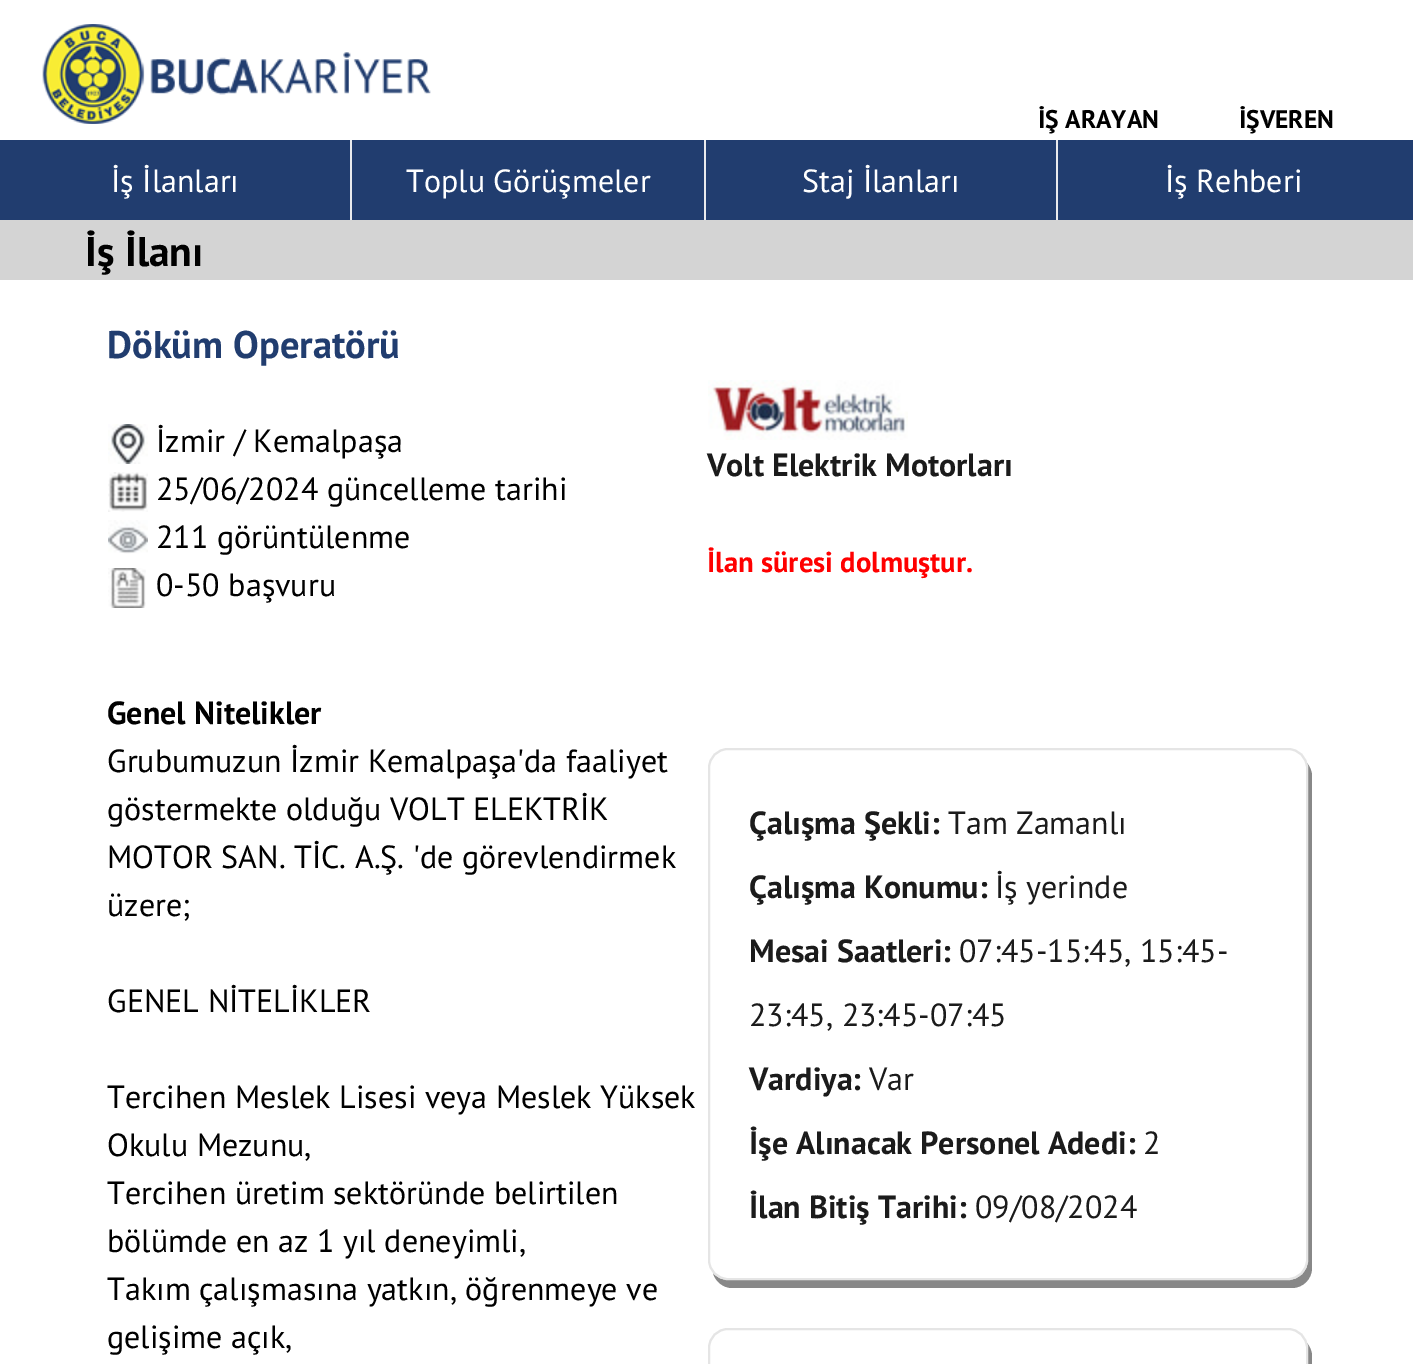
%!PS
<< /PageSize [1413 1364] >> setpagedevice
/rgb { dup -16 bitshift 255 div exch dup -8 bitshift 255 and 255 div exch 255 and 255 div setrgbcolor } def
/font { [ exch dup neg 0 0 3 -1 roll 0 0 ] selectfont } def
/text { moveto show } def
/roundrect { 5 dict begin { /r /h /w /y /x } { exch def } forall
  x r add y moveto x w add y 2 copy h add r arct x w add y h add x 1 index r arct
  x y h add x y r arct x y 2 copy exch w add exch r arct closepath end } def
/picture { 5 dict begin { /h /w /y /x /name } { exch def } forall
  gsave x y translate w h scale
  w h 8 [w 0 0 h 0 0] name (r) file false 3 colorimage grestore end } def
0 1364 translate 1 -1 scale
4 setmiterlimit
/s1 { /PTSans-Bold 25.5 font 16#000000 rgb } def
/s2 { /PTSans-Regular 32 font 16#FFFFFF rgb } def
/s3 { /PTSans-Bold 41.5 font 16#000000 rgb } def
/s4 { /PTSans-Bold 38.5 font 16#213D6F rgb } def
/s5 { /PTSans-Regular 32 font 16#000000 rgb } def
/s6 { /PTSans-Bold 32 font 16#1B1B1B rgb } def
/s7 { /PTSans-Bold 28.75 font 16#FF0000 rgb } def
/s8 { /PTSans-Bold 32 font 16#000000 rgb } def
/s9 { /PTSans-Regular 32 font 16#1B1B1B rgb } def
16#FFFFFF rgb
0 0 1413 1364 rectfill
(pic1.raw) 42 24 389 100 picture
s1
(İŞ ARAYAN) 1038 128 text
(İŞVEREN) 1239 128 text
16#213D6F rgb
0 140 1413 80 rectfill
s2
(İş İlanları) 111 192 text
16#E9EAED rgb
350 140 2 80 rectfill
s2
(Toplu Görüşmeler) 406 192 text
16#E9EAED rgb
704 140 2 80 rectfill
s2
(Staj İlanları) 802 192 text
16#E9EAED rgb
1056 140 2 80 rectfill
s2
(İş Rehberi) 1165 192 text
16#D4D4D4 rgb
0 220 1413 60 rectfill
s3
(İş İlanı) 85 266 text
s4
(Döküm Operatörü) 107 358 text
(pic2.raw) 108 424 40 40 picture
s5
(İzmir / Kemalpaşa) 156 452 text
(pic3.raw) 108 472 40 40 picture
(25/06/2024 güncelleme tarihi) 156 500 text
(pic4.raw) 108 520 40 34 picture
(211 görüntülenme) 156 548 text
(pic5.raw) 108 568 38 40 picture
(0-50 başvuru) 156 596 text
(pic6.raw) 708 380 200 60 picture
s6
(Volt Elektrik Motorları) 707 476 text
s7
(İlan süresi dolmuştur.) 707 572 text
s8
(Genel Nitelikler) 107 724 text
s5
(Grubumuzun İzmir Kemalpaşa'da faaliyet) 107 772 text
(göstermekte olduğu VOLT ELEKTRİK) 107 820 text
(MOTOR SAN. TİC. A.Ş. 'de görevlendirmek) 107 868 text
(üzere;) 107 916 text
(GENEL NİTELİKLER) 107 1012 text
(Tercihen Meslek Lisesi veya Meslek Yüksek) 107 1108 text
(Okulu Mezunu,) 107 1156 text
(Tercihen üretim sektöründe belirtilen) 107 1204 text
(bölümde en az 1 yıl deneyimli,) 107 1252 text
(Takım çalışmasına yatkın, öğrenmeye ve) 107 1300 text
(gelişime açık,) 107 1348 text
16#888888 rgb
713 1273 moveto 715 1281 723 1288 732 1288 curveto 1292 1288 lineto 1303 1288 1312 1279 1312 1268 curveto 1312 776 lineto 1312 771 1310 767 1307 763 curveto 1308 768 lineto 1308 1260 lineto 1308 1271 1299 1280 1288 1280 curveto 728 1280 lineto 722 1280 716 1277 713 1273 curveto closepath fill
16#E5E5E5 rgb
2 setlinewidth
709 749 598 530 19 roundrect stroke
s6
(Çalışma Şekli:) 749 834 text
s9
(Tam Zamanlı) 948 834 text
s6
(Çalışma Konumu:) 749 898 text
s9
(İş yerinde) 995 898 text
s6
(Mesai Saatleri:) 749 962 text
s9
(07:45-15:45, 15:45-) 959 962 text
(23:45, 23:45-07:45) 749 1026 text
s6
(Vardiya:) 749 1090 text
s9
(Var) 869 1090 text
s6
(İşe Alınacak Personel Adedi:) 749 1154 text
s9
(2) 1143 1154 text
s6
(İlan Bitiş Tarihi:) 749 1218 text
s9
(09/08/2024) 975 1218 text
16#888888 rgb
713 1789 moveto 715 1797 723 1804 732 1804 curveto 1292 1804 lineto 1303 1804 1312 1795 1312 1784 curveto 1312 1356 lineto 1312 1351 1310 1347 1307 1343 curveto 1308 1348 lineto 1308 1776 lineto 1308 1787 1299 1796 1288 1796 curveto 728 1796 lineto 722 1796 716 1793 713 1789 curveto closepath fill
16#E5E5E5 rgb
709 1329 598 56 19 roundrect stroke
showpage
